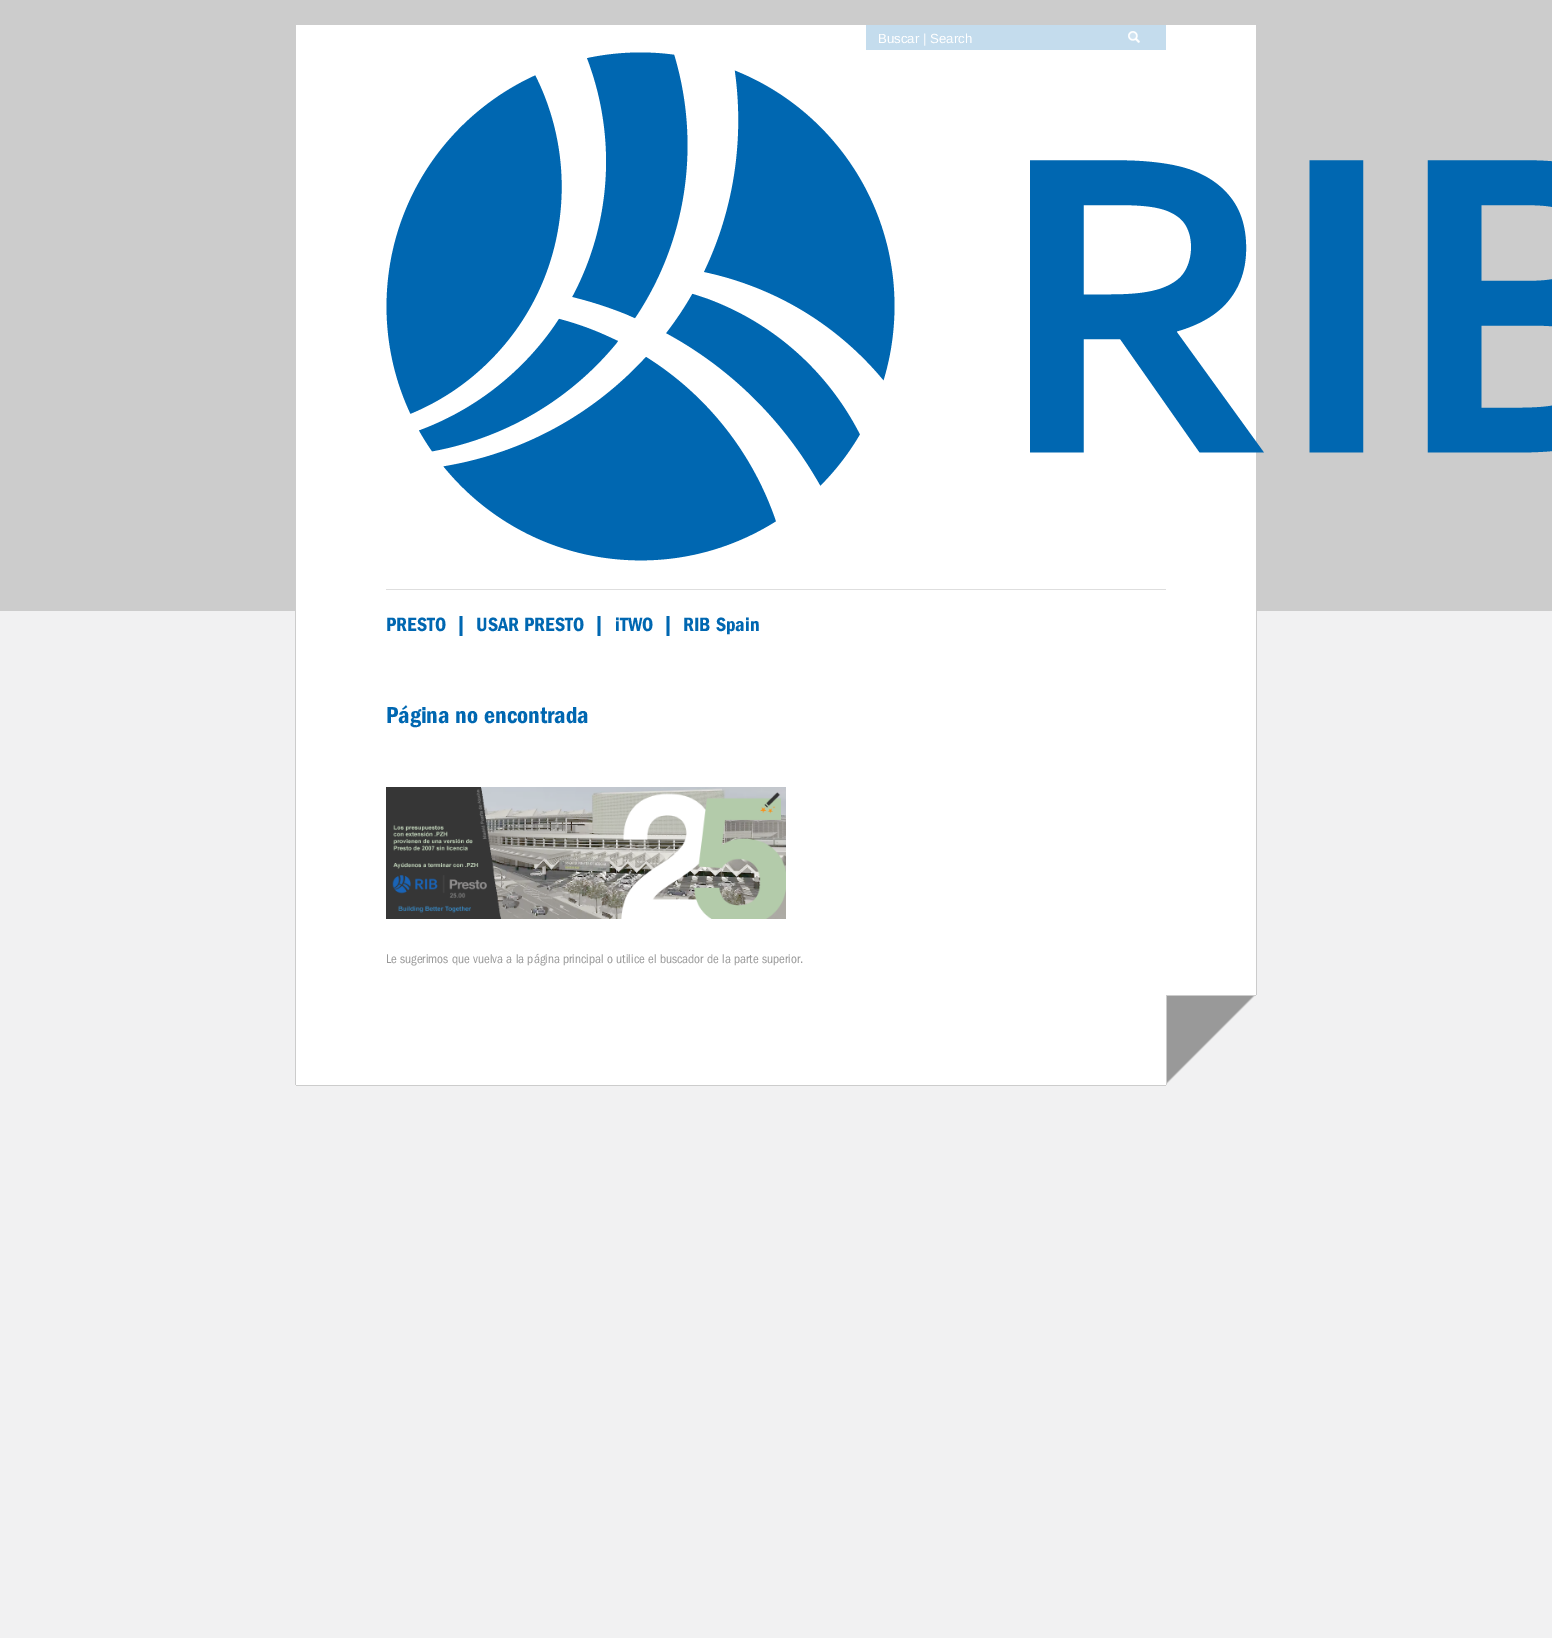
%!PS
<< /PageSize [1552 1638] >> setpagedevice
/rgb { dup -16 bitshift 255 div exch dup -8 bitshift 255 and 255 div exch 255 and 255 div setrgbcolor } def
/font { [ exch dup neg 0 0 3 -1 roll 0 0 ] selectfont } def
/text { moveto show } def
/picture { 5 dict begin { /h /w /y /x /name } { exch def } forall
  gsave x y translate w h scale
  w h 8 [w 0 0 h 0 0] name (r) file false 3 colorimage grestore end } def
0 1638 translate 1 -1 scale
4 setmiterlimit
/s1 { /LiberationSans-Regular 13.25 font 16#FFFFFF rgb } def
/s2 { /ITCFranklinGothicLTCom-SemiBold 20 font 16#0067B1 rgb } def
/s3 { /ITCFranklinGothicLTCom-SemiBold 24 font 16#0067B1 rgb } def
/s4 { /ITCFranklinGothicLTCom-Regular 13 font 16#999999 rgb } def
16#F1F1F2 rgb
0 0 1552 1638 rectfill
16#CCCCCC rgb
0 0 1552 611 rectfill
16#FFFFFF rgb
296 25 960 970 rectfill
16#C4DCED rgb
866 25 300 25 rectfill
s1
(Buscar | Search) 878 43 text
(pic1.raw) 1128 31 12 12 picture
(pic2.raw) 386 52 1166 509 picture
16#DEDEDE rgb
386 589 780 1 rectfill
16#CCCCCC rgb
1256 611 1 384 rectfill
295 611 1 474 rectfill
s2
(PRESTO) 386 631 text
(|) 456 631 text
(USAR PRESTO) 476 631 text
(|) 594 631 text
(iTWO) 615 631 text
(|) 663 631 text
(RIB Spain) 683 631 text
s3
(Página no encontrada) 386 723 text
(pic3.raw) 386 787 400 132 picture
s4
(Le sugerimos que vuelva a la página principal o utilice el buscador de la parte superior.) 386 963 text
16#FFFFFF rgb
296 995 870 90 rectfill
(pic4.raw) 1166 995 90 90 picture
16#CCCCCC rgb
296 1085 870 1 rectfill
showpage
